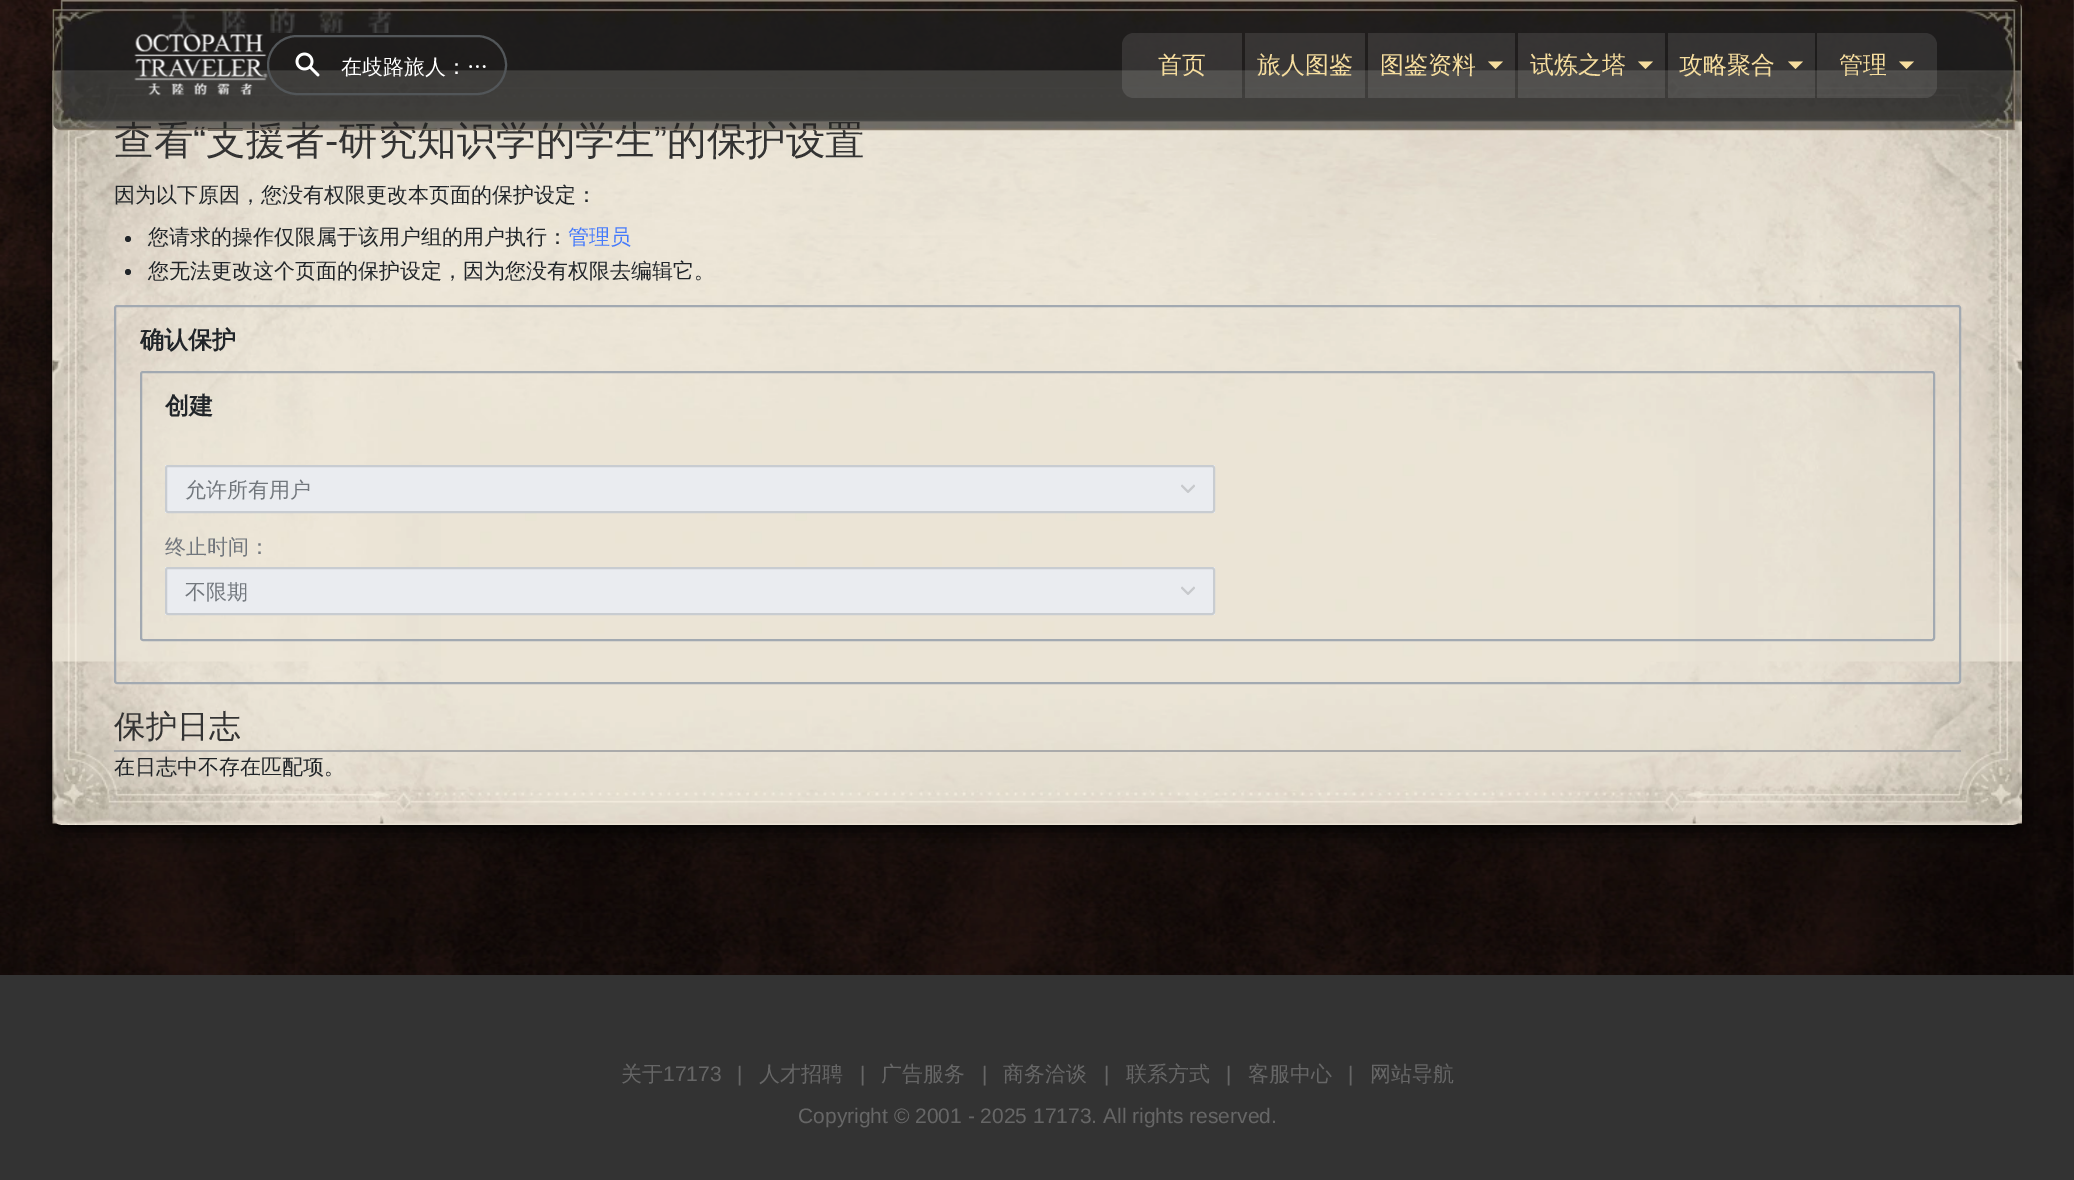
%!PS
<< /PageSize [2074 1180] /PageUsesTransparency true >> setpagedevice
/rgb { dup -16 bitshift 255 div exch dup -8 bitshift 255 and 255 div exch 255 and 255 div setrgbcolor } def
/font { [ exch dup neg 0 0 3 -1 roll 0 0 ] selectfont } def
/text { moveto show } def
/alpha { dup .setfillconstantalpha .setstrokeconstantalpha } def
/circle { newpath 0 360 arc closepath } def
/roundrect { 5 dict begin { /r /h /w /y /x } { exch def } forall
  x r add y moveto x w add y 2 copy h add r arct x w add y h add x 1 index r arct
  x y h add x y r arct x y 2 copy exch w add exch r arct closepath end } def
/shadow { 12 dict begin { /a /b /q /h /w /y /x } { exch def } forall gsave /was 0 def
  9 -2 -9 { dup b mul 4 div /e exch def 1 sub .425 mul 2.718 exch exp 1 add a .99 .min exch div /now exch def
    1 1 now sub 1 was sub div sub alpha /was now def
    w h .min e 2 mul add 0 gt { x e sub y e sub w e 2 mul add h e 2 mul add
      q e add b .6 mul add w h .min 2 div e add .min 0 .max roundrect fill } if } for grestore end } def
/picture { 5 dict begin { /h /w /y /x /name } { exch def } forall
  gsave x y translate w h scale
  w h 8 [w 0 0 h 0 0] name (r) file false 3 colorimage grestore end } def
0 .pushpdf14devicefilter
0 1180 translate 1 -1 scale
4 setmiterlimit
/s1 { /WenQuanYiZenHei-Medium 39.5 font 16#333333 rgb } def
/s2 { /LiberationSans-Regular 39.5 font 16#333333 rgb } def
/s3 { /WenQuanYiZenHei-Medium 21 font 16#FFFFFF rgb } def
/s4 { /WenQuanYiZenHei-Medium 24 font 16#F7DE9F rgb } def
/s5 { /WenQuanYiZenHei-Medium 21 font 16#212529 rgb } def
/s6 { /WenQuanYiZenHei-Medium 21 font 16#457AFB rgb } def
/s7 { /WenQuanYiZenHei-Bold 24 font 16#212529 rgb } def
/s8 { /WenQuanYiZenHei-Medium 21 font 16#72777D rgb } def
/s9 { /WenQuanYiZenHei-Medium 31.5 font 16#333333 rgb } def
/s10 { /WenQuanYiZenHei-Medium 21 font 16#666666 rgb } def
/s11 { /LiberationSans-Regular 21 font 16#666666 rgb } def
16#FFFFFF rgb
0 0 2074 1180 rectfill
(pic1.raw) 0 0 2074 975 picture
(pic2.raw) 142 1 281 32 picture
16#000000 rgb
56 77 1963 748 6 3 0.8 shadow
54 78 1967 752 8 10.5 0.8 shadow
(pic6.raw) 52 70 1966 755 picture
(pic7.raw) 52 70 1970 754 picture
s1
(查看) 114 154 text
s2
(“) 193 154 text
s1
(支援者) 206 154 text
(研究知识学的学生) 338 154 text
s2
(”) 654 154 text
s1
(的保护设置) 667 154 text
(pic3.raw) 52 0 1970 131 picture
(pic4.raw) 134 34 134 62 picture
16#525659 rgb
2 setlinewidth
268 36 238 58 29 roundrect stroke
(pic5.raw) 295 52 25 25 picture
s3
(在歧路旅人：…) 341 74 text
0.1 alpha
1134 33 moveto 1242 33 lineto 1242 98 lineto 1134 98 lineto 1127.5 98 1122 92.5 1122 86 curveto 1122 45 lineto 1122 38.5 1127.5 33 1134 33 curveto closepath fill
1 alpha
s4
(首页) 1158 73 text
0.1 alpha
16#FFFFFF rgb
1245 33 120 65 rectfill
1 alpha
s4
(旅人图鉴) 1257 73 text
0.1 alpha
16#FFFFFF rgb
1368 33 147 65 rectfill
1 alpha
s4
(图鉴资料) 1380 73 text
1488 61.5 moveto 1503 61.5 lineto 1495.5 69 lineto closepath fill
0.1 alpha
16#FFFFFF rgb
1518 33 147 65 rectfill
1 alpha
s4
(试炼之塔) 1530 73 text
1638 61.5 moveto 1653 61.5 lineto 1645.5 69 lineto closepath fill
0.1 alpha
16#FFFFFF rgb
1668 33 147 65 rectfill
1 alpha
s4
(攻略聚合) 1679 73 text
1788 61.5 moveto 1803 61.5 lineto 1795.5 69 lineto closepath fill
0.1 alpha
16#FFFFFF rgb
1817 33 moveto 1925 33 lineto 1931.5 33 1937 38.5 1937 45 curveto 1937 86 lineto 1937 92.5 1931.5 98 1925 98 curveto 1817 98 lineto closepath fill
1 alpha
s4
(管理) 1839 73 text
1899 61.5 moveto 1914 61.5 lineto 1906.5 69 lineto closepath fill
s2
(-) 325 154 text
s5
(因为以下原因，您没有权限更改本页面的保护设定：) 114 202 text
128 239 3 circle fill
(您请求的操作仅限属于该用户组的用户执行：) 148 244 text
s6
(管理员) 568 244 text
16#212529 rgb
128 272 3 circle fill
(您无法更改这个页面的保护设定，因为您没有权限去编辑它。) 148 278 text
16#A2A9B1 rgb
115 306 1845 377 2 roundrect stroke
s7
(确认保护) 140 348 text
16#A2A9B1 rgb
141 372 1793 268 2 roundrect stroke
s7
(创建) 165 414 text
16#EAECF0 rgb
165 465 1050 48 rectfill
16#C8CCD1 rgb
166 466 1048 46 2 roundrect stroke
s8
(允许所有用户) 185 497 text
(pic8.raw) 1181 484 14 9 picture
(终止时间：) 165 554 text
16#EAECF0 rgb
165 567 1050 48 rectfill
16#C8CCD1 rgb
166 568 1048 46 2 roundrect stroke
s8
(不限期) 185 599 text
(pic8.raw) 1181 586 14 9 picture
16#AAAAAA rgb
114 750 1847 2 rectfill
s9
(保护日志) 114 737 text
s5
(在日志中不存在匹配项。) 114 774 text
16#333333 rgb
0 975 2074 205 rectfill
s10
(关于) 621 1081 text
s11
(17173) 663 1081 text
(|) 737 1081 text
s10
(人才招聘) 759 1081 text
s11
(|) 860 1081 text
s10
(广告服务) 881 1081 text
s11
(|) 982 1081 text
s10
(商务洽谈) 1003 1081 text
s11
(|) 1104 1081 text
s10
(联系方式) 1126 1081 text
s11
(|) 1226 1081 text
s10
(客服中心) 1248 1081 text
s11
(|) 1348 1081 text
s10
(网站导航) 1370 1081 text
s11
(Copyright © 2001 - 2025 17173. All rights reserved.) 798 1123 text
.poppdf14devicefilter showpage
